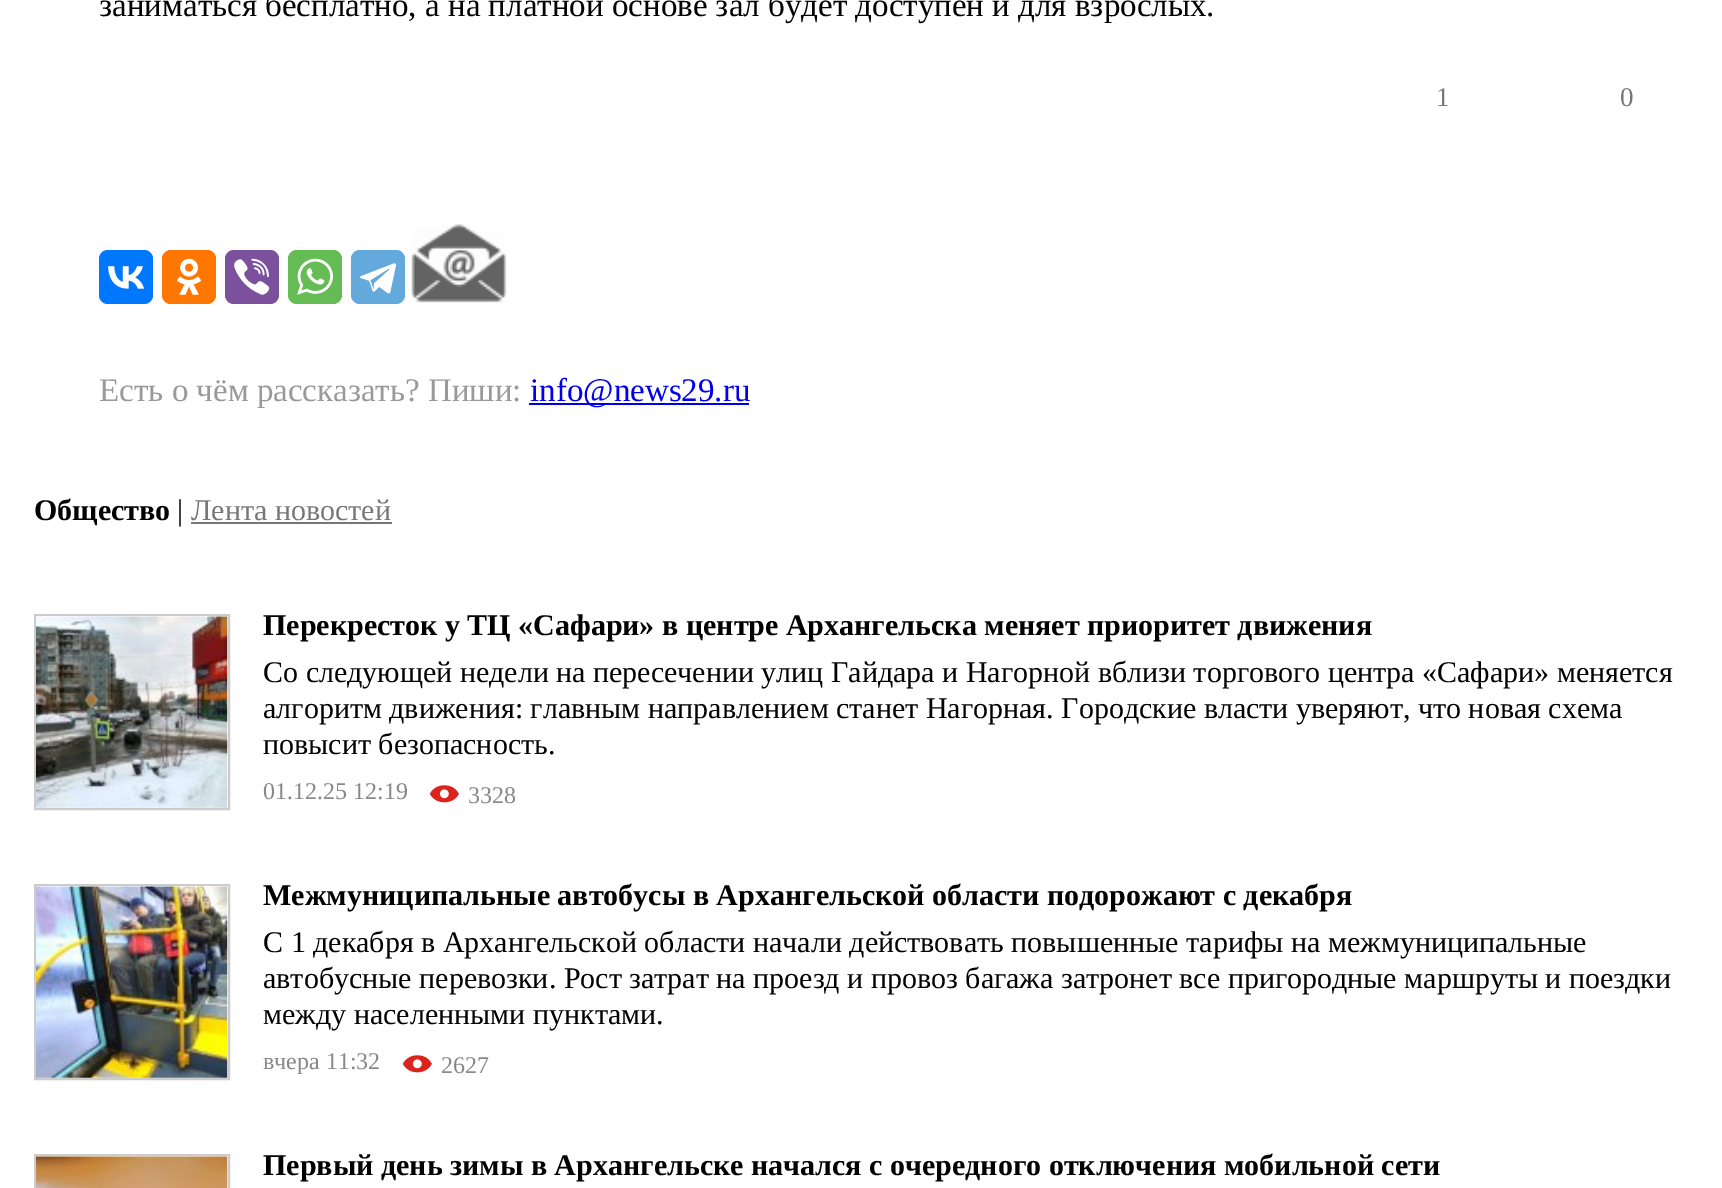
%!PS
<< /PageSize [1722 1188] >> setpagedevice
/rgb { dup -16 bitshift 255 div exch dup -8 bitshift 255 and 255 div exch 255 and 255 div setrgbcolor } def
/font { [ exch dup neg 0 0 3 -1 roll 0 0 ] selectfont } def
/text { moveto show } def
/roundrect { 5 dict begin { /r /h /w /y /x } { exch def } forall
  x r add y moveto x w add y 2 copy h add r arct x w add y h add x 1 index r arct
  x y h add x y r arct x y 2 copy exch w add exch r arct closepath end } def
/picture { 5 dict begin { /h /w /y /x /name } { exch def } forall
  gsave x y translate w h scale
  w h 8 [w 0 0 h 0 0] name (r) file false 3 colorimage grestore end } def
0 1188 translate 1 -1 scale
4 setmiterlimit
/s1 { /LiberationSerif-Regular 33 font 16#000000 rgb } def
/s2 { /LiberationSerif-Regular 27 font 16#777777 rgb } def
/s3 { /LiberationSerif-Regular 33 font 16#999999 rgb } def
/s4 { /LiberationSerif-Regular 33 font 16#0000EE rgb } def
/s5 { /LiberationSerif-Bold 30 font 16#000000 rgb } def
/s6 { /LiberationSerif-Regular 30 font 16#000000 rgb } def
/s7 { /LiberationSerif-Regular 30 font 16#777777 rgb } def
/s8 { /LiberationSerif-Regular 24 font 16#888888 rgb } def
16#FFFFFF rgb
0 0 1722 1188 rectfill
s1
(заниматься бесплатно, а на платной основе зал будет доступен и для взрослых.) 99 16 text
s2
(1) 1436 106 text
(0) 1620 106 text
16#0077FF rgb
99 250 54 54 9 roundrect fill
(pic1.raw) 108 266 37 23 picture
16#FF7700 rgb
162 250 54 54 9 roundrect fill
(pic2.raw) 177 258 25 37 picture
16#7B519D rgb
225 250 54 54 9 roundrect fill
(pic3.raw) 234 258 36 37 picture
16#65BC54 rgb
288 250 54 54 9 roundrect fill
(pic4.raw) 297 258 36 37 picture
16#64A9DC rgb
351 250 54 54 9 roundrect fill
(pic5.raw) 360 263 36 31 picture
(pic6.raw) 411 224 96 79 picture
s3
(Есть о чём рассказать? Пиши:) 99 401 text
16#0000EE rgb
529 403 220 2 rectfill
(info@news29.ru) 530 401 text
s5
(Общество) 34 520 text
s6
(|) 177 520 text
s7
(Лента новостей) 191 520 text
191 522 201 2 rectfill
16#CCCCCC rgb
2 setlinewidth
35 615 194 194 rectstroke
(pic7.raw) 36 616 192 192 picture
s5
(Перекресток у ТЦ «Сафари» в центре Архангельска меняет приоритет движения) 263 635 text
s6
(Со следующей недели на пересечении улиц Гайдара и Нагорной вблизи торгового центра «Сафари» меняется) 263 682 text
(алгоритм движения: главным направлением станет Нагорная. Городские власти уверяют, что новая схема) 263 718 text
(повысит безопасность.) 263 754 text
s8
(01.12.25 12:19) 263 799 text
(pic8.raw) 430 785 29 18 picture
(3328) 468 803 text
16#CCCCCC rgb
35 885 194 194 rectstroke
(pic9.raw) 36 886 192 192 picture
s5
(Межмуниципальные автобусы в Архангельской области подорожают с декабря) 263 905 text
s6
(С 1 декабря в Архангельской области начали действовать повышенные тарифы на межмуниципальные) 263 952 text
(автобусные перевозки. Рост затрат на проезд и провоз багажа затронет все пригородные маршруты и поездки) 263 988 text
(между населенными пунктами.) 263 1024 text
s8
(вчера 11:32) 263 1069 text
(pic8.raw) 403 1055 29 18 picture
(2627) 441 1073 text
16#CCCCCC rgb
35 1155 194 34 rectstroke
(pic10.raw) 36 1156 192 32 picture
s5
(Первый день зимы в Архангельске начался с очередного отключения мобильной сети) 263 1175 text
showpage
